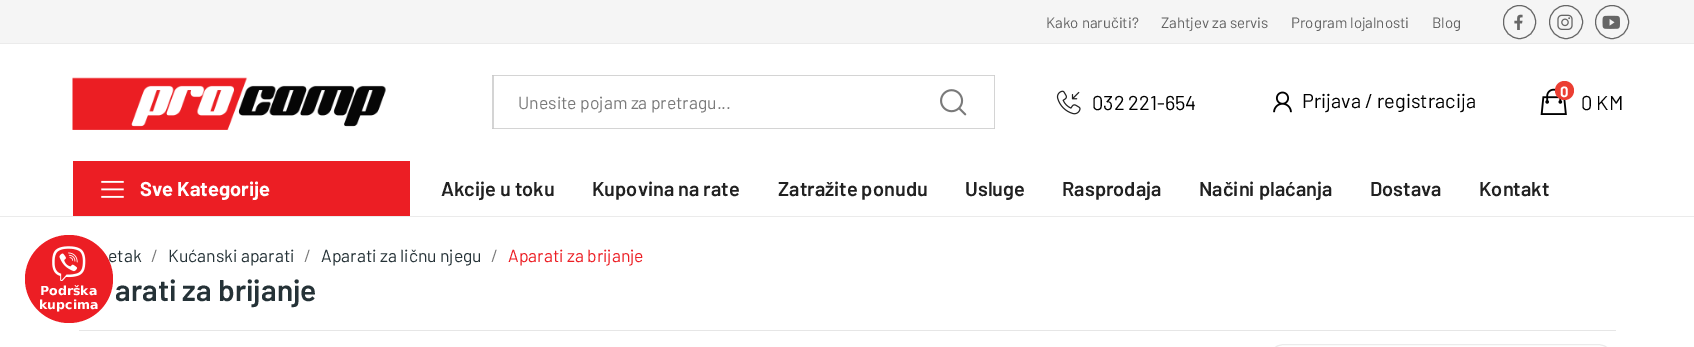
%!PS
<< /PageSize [1694 347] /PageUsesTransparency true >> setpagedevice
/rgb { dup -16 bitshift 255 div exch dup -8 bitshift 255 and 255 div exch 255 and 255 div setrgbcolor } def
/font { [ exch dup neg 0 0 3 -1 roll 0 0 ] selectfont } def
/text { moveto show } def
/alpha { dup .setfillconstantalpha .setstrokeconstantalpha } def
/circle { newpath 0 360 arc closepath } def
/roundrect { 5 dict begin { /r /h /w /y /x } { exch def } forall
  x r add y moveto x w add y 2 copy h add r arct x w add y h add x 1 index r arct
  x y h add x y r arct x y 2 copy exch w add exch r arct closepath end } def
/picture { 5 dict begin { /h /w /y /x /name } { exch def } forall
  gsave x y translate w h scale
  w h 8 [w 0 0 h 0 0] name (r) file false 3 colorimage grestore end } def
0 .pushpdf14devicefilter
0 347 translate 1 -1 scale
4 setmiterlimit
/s1 { /Barlow-Regular 17.5 font 16#253237 rgb } def
/s2 { /DejaVuSans-Bold 12.5 font 16#FFFFFF rgb } def
/s3 { /Barlow-Regular 15 font 16#626262 rgb } def
/s4 { /Barlow-Regular 17.5 font 16#7A7A7A rgb } def
/s5 { /Barlow-Regular 20 font 16#000000 rgb } def
/s6 { /Barlow-Bold 15 font 16#FFFFFF rgb } def
/s7 { /Barlow-Bold 20 font 16#FFFFFF rgb } def
/s8 { /Barlow-SemiBold 20 font 16#212121 rgb } def
/s9 { /Barlow-Regular 17.5 font 16#EC1E24 rgb } def
/s10 { /Barlow-SemiBold 30 font 16#253237 rgb } def
16#FFFFFF rgb
0 0 1694 347 rectfill
s1
(etak) 108 262 text
16#EC1E24 rgb
69 279 44 circle fill
(pic1.raw) 52 246 34 35 picture
s2
(Podrška) 40 295 text
(kupcima) 39 309 text
16#EBEBEB rgb
0 216 1694 1 rectfill
16#F5F5F5 rgb
0 0 1694 43 rectfill
16#EBEBEB rgb
0 43 1694 1 rectfill
s3
(Kako naručiti?) 1046 28 text
(Zahtjev za servis) 1161 28 text
(Program lojalnosti) 1291 28 text
(Blog) 1432 28 text
16#666666 rgb
1503.5 5.5 32 33 16 roundrect stroke
(pic2.raw) 1514 14 9 16 picture
1566 22 16.5 circle stroke
(pic3.raw) 1557 14 16 16 picture
1612 22 16.5 circle stroke
(pic4.raw) 1602 15 18 14 picture
(pic5.raw) 72 77 314 53 picture
16#D4D4D4 rgb
492 75 moveto 914 75 lineto 914 76 lineto 494 76 lineto closepath fill
914 129 moveto 492 129 lineto 494 128 lineto 914 128 lineto closepath fill
0.17 alpha
16#000000 rgb
492 129 moveto 492 75 lineto 494 76 lineto 494 128 lineto closepath fill
1 alpha
s4
(Unesite pojam za pretragu...) 518 109 text
16#D4D4D4 rgb
914 75 moveto 995 75 lineto 994 76 lineto 914 76 lineto closepath fill
0.17 alpha
16#000000 rgb
995 75 moveto 995 129 lineto 994 128 lineto 994 76 lineto closepath fill
995 129 moveto 914 129 lineto 914 128 lineto 994 128 lineto closepath fill
1 alpha
(pic6.raw) 940 89 27 27 picture
(pic7.raw) 1056 90 25 25 picture
s5
(032 221-654) 1092 110 text
(pic8.raw) 1273 91 19 22 picture
(Prijava / registracija) 1302 108 text
(pic9.raw) 1540 88 27 27 picture
16#EB3E32 rgb
1564.5 90.5 9.5 circle fill
s6
(0) 1560 97 text
s5
(0 KM) 1581 110 text
16#EC1E24 rgb
73 161 337 55 rectfill
(pic10.raw) 101 180 23 18 picture
s7
(Sve Kategorije) 140 196 text
s8
(Akcije u toku) 441 196 text
(Kupovina na rate) 592 196 text
(Zatražite ponudu) 778 196 text
(Usluge) 965 196 text
(Rasprodaja) 1062 196 text
(Načini plaćanja) 1199 196 text
(Dostava) 1370 196 text
(Kontakt) 1479 196 text
s4
(/) 151 262 text
s1
(Kućanski aparati) 168 262 text
s4
(/) 304 262 text
s1
(Aparati za ličnu njegu) 321 262 text
s4
(/) 491 262 text
s9
(Aparati za brijanje) 508 262 text
16#E6E6E6 rgb
79 330 1537 1 rectfill
s10
(arati za brijanje) 115 301 text
16#EBEBEB rgb
1266.5 344.5 349 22 18 roundrect stroke
.poppdf14devicefilter showpage
